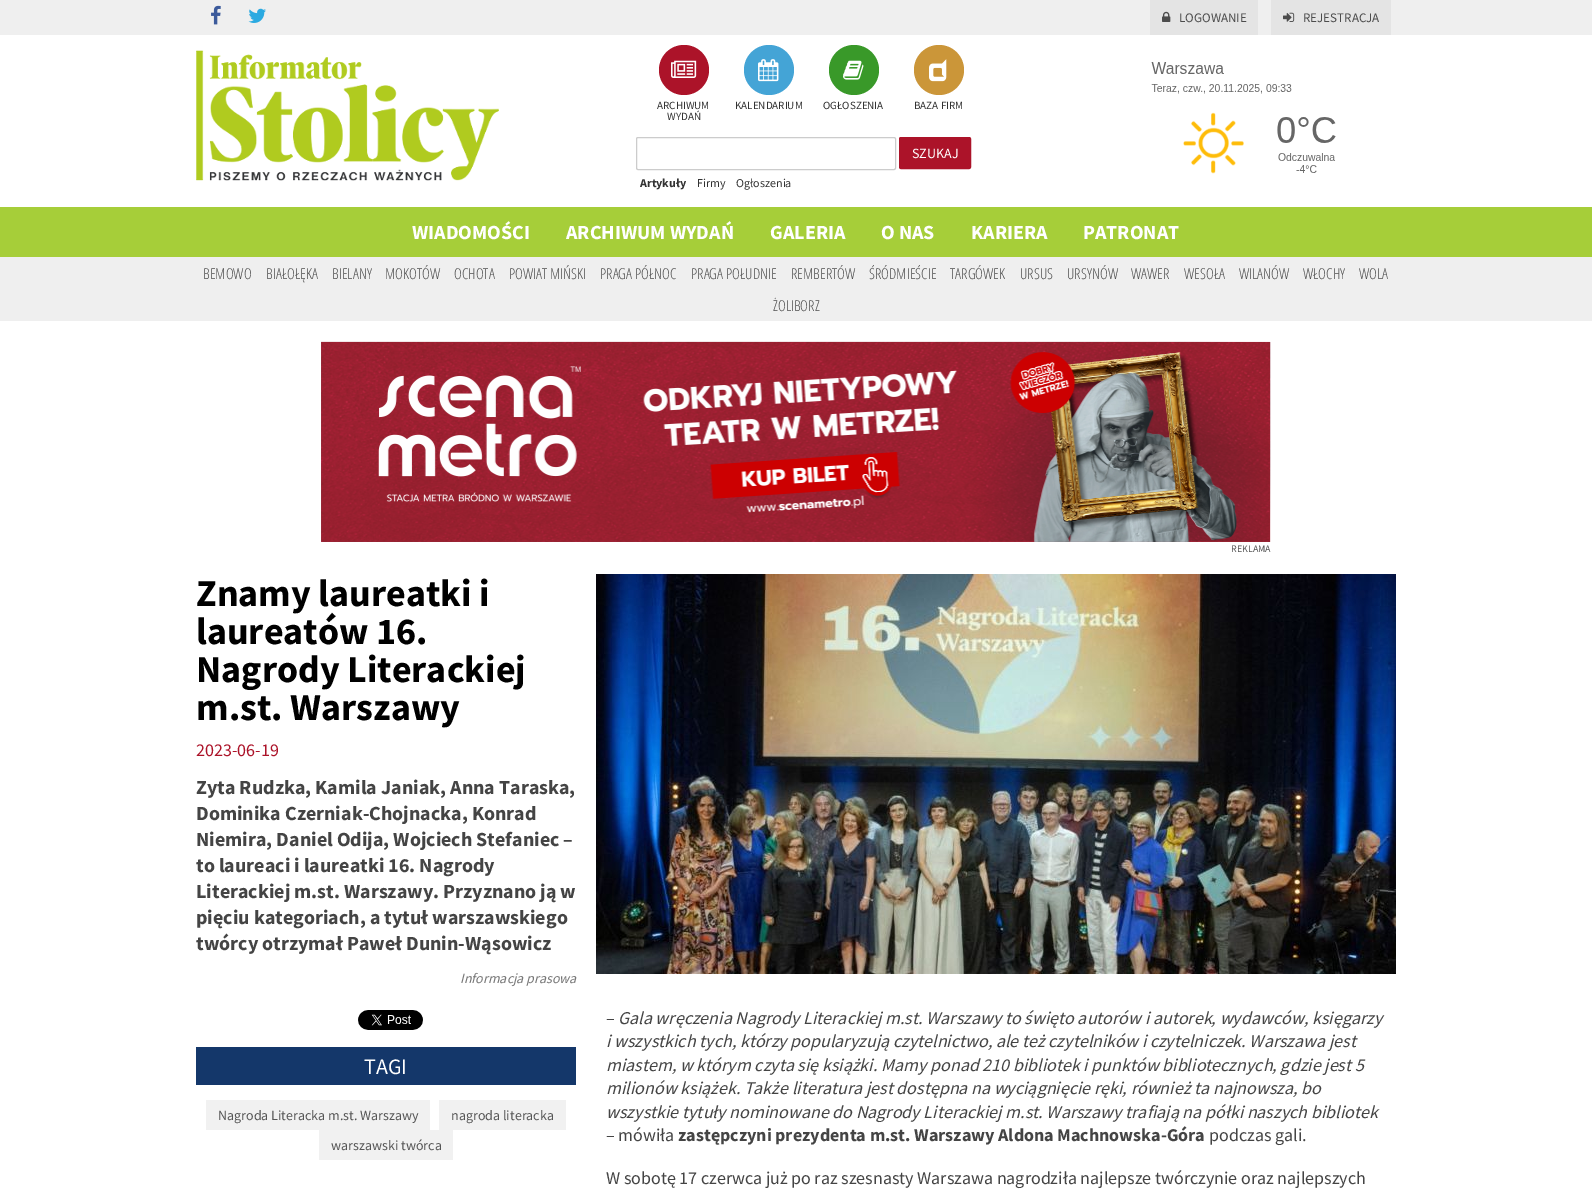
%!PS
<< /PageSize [1592 1200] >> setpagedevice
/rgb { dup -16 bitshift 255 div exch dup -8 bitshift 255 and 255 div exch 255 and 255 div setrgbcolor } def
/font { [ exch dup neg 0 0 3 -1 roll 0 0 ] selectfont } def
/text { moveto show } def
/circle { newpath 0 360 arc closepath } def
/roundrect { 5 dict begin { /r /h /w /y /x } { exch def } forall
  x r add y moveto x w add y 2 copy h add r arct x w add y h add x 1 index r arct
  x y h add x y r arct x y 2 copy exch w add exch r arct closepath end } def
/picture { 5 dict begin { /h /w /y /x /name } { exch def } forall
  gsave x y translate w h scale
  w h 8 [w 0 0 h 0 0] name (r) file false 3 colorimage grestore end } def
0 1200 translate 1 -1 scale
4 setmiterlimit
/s1 { /SourceSansPro-Regular 13 font 16#4C4C4C rgb } def
/s2 { /SourceSansPro-Regular 11 font 16#333333 rgb } def
/s3 { /SourceSansPro-Regular 14 font 16#FFFFFF rgb } def
/s4 { /SourceSansPro-Bold 12 font 16#333333 rgb } def
/s5 { /SourceSansPro-Regular 12 font 16#333333 rgb } def
/s6 { /SourceSansPro-Bold 20 font 16#FFFFFF rgb } def
/s7 { /OpenSansCondensed-Light 15 font 16#4C4C4C rgb } def
/s8 { /SourceSansPro-Regular 10 font 16#555555 rgb } def
/s9 { /SourceSansPro-Bold 38 font 16#000000 rgb } def
/s10 { /SourceSansPro-Regular 18 font 16#AC1329 rgb } def
/s11 { /SourceSansPro-Bold 20 font 16#444444 rgb } def
/s12 { /SourceSansPro-Italic 14 font 16#777777 rgb } def
/s13 { /SourceSansPro-Regular 22 font 16#FFFFFF rgb } def
/s14 { /SourceSansPro-Regular 14 font 16#555555 rgb } def
/s15 { /SourceSansPro-Regular 18 font 16#444444 rgb } def
/s16 { /SourceSansPro-Italic 18 font 16#444444 rgb } def
/s17 { /SourceSansPro-Bold 18 font 16#444444 rgb } def
16#FFFFFF rgb
0 0 1592 1200 rectfill
16#EFEFEF rgb
0 0 1592 35 rectfill
(pic1.raw) 211 5 10 20 picture
(pic2.raw) 248 8 18 15 picture
16#E4E4E4 rgb
1150 0 108 35 rectfill
(pic3.raw) 1162 11 9 11 picture
s1
(LOGOWANIE) 1179 22 text
16#E4E4E4 rgb
1271 0 120 35 rectfill
(pic4.raw) 1283 12 12 10 picture
s1
(REJESTRACJA) 1303 22 text
(pic5.raw) 196 50 303 131 picture
16#AC1329 rgb
684 70 25 circle fill
(pic6.raw) 671 60 26 18 picture
s2
(ARCHIWUM) 657 109 text
(WYDAŃ) 667 120 text
16#44A4D6 rgb
769 70 25 circle fill
(pic7.raw) 758 59 21 23 picture
s2
(KALENDARIUM) 735 109 text
16#399929 rgb
854 70 25 circle fill
(pic8.raw) 843 60 21 20 picture
s2
(OGŁOSZENIA) 823 109 text
16#CB9639 rgb
939 70 25 circle fill
(pic9.raw) 929 59 18 23 picture
s2
(BAZA FIRM) 914 109 text
(pic10.raw) 1151 62 185 112 picture
16#CCCCCC rgb
636.5 137.5 259 32 1.5 roundrect stroke
16#AC1329 rgb
899.5 137.5 71 31 1.5 roundrect gsave fill grestore
stroke
s3
(SZUKAJ) 912 158 text
s4
(Artykuły) 640 187 text
s5
(Firmy) 697 187 text
(Ogłoszenia) 736 187 text
16#A6CE39 rgb
0 207 1592 50 rectfill
s6
(WIADOMOŚCI) 412 239 text
(ARCHIWUM WYDAŃ) 566 239 text
(GALERIA) 770 239 text
(O NAS) 881 239 text
(KARIERA) 971 239 text
(PATRONAT) 1083 239 text
16#EFEFEF rgb
0 257 1592 64 rectfill
s7
(BEMOWO) 203 279 text
(BIAŁOŁĘKA) 266 279 text
(BIELANY) 332 279 text
(MOKOTÓW) 385 279 text
(OCHOTA) 454 279 text
(POWIAT MIŃSKI) 509 279 text
(PRAGA PÓŁNOC) 600 279 text
(PRAGA POŁUDNIE) 691 279 text
(REMBERTÓW) 791 279 text
(ŚRÓDMIEŚCIE) 869 279 text
(TARGÓWEK) 950 279 text
(URSUS) 1020 279 text
(URSYNÓW) 1067 279 text
(WAWER) 1131 279 text
(WESOŁA) 1184 279 text
(WILANÓW) 1239 279 text
(WŁOCHY) 1303 279 text
(WOLA) 1359 279 text
(ŻOLIBORZ) 773 311 text
(pic11.raw) 321 341 950 201 picture
s8
(REKLAMA) 1231 552 text
s9
(Znamy laureatki i) 196 606 text
(laureatów 16.) 196 644 text
(Nagrody Literackiej) 196 682 text
(m.st. Warszawy) 196 720 text
s10
(2023-06-19) 196 756 text
s11
(Zyta Rudzka, Kamila Janiak, Anna Taraska,) 196 794 text
(Dominika Czerniak-Chojnacka, Konrad) 196 820 text
(Niemira, Daniel Odija, Wojciech Stefaniec –) 196 846 text
(to laureaci i laureatki 16. Nagrody) 196 872 text
(Literackiej m.st. Warszawy. Przyznano ją w) 196 898 text
(pięciu kategoriach, a tytuł warszawskiego) 196 924 text
(twórcy otrzymał Paweł Dunin-Wąsowicz) 196 950 text
s12
(Informacja prasowa) 460 983 text
(pic12.raw) 358 1010 65 20 picture
16#14376A rgb
196 1047 380 38 rectfill
s13
(TAGI) 364 1074 text
16#F1F1F1 rgb
206 1100 224 30 rectfill
s14
(Nagroda Literacka m.st. Warszawy) 218 1120 text
16#F1F1F1 rgb
439 1100 127 30 rectfill
s14
(nagroda literacka) 451 1120 text
16#F1F1F1 rgb
319 1130 134 30 rectfill
s14
(warszawski twórca) 331 1150 text
(pic13.raw) 596 574 800 400 picture
s15
(–) 606 1024 text
s16
(Gala wręczenia Nagrody Literackiej m.st. Warszawy to święto autorów i autorek, wydawców, księgarzy) 618 1024 text
(i wszystkich tych, którzy popularyzują czytelnictwo, ale też czytelników i czytelniczek. Warszawa jest) 606 1047 text
(miastem, w którym czyta się książki. Mamy ponad 210 bibliotek i punktów bibliotecznych, gdzie jest 5) 606 1071 text
(milionów książek. Także literatura jest dostępna na wyciągnięcie ręki, również ta najnowsza, bo) 606 1094 text
(wszystkie tytuły nominowane do Nagrody Literackiej m.st. Warszawy trafiają na półki naszych bibliotek) 606 1118 text
s15
(– mówiła) 606 1141 text
s17
(zastępczyni prezydenta m.st. Warszawy Aldona Machnowska-Góra) 678 1141 text
s15
(podczas gali.) 1209 1141 text
(W sobotę 17 czerwca już po raz szesnasty Warszawa nagrodziła najlepsze twórczynie oraz najlepszych) 606 1184 text
showpage
